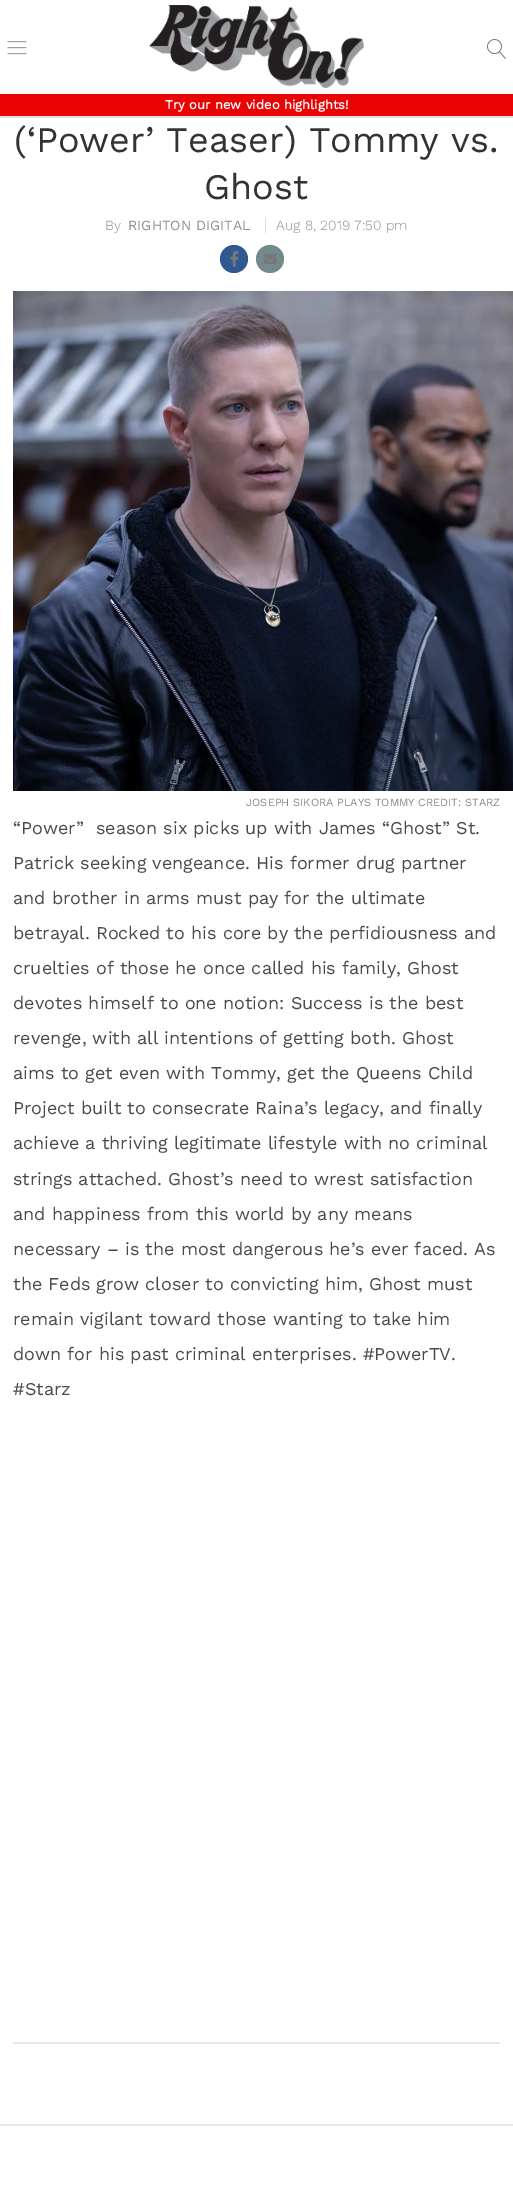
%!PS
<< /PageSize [513 2186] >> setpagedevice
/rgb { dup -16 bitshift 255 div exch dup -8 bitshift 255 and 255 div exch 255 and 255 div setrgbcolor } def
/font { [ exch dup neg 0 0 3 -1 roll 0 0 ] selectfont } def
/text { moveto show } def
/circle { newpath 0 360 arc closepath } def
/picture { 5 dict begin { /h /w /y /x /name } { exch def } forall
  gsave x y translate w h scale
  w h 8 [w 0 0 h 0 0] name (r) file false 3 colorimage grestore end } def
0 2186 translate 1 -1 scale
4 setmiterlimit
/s1 { /WorkSans-Bold 13 font 16#FFFFFF rgb } def
/s2 { /WorkSans-Regular 36 font 16#333333 rgb } def
/s3 { /WorkSans-Light 14 font 16#909090 rgb } def
/s4 { /WorkSans-Regular 14 font 16#909090 rgb } def
/s5 { /WorkSans-Regular 11 font 16#888888 rgb } def
/s6 { /WorkSans-Regular 18 font 16#4A4A4A rgb } def
16#FFFFFF rgb
0 0 513 2186 rectfill
16#DFDFDF rgb
0 116 513 2 rectfill
(pic1.raw) 7 41 20 14 picture
(pic2.raw) 149 5 215 83 picture
(pic3.raw) 487 39 19 20 picture
16#EB0303 rgb
0 94 513 22 rectfill
s1
(Try our new video highlights!) 165 109 text
s2
(\(‘Power’ Teaser\) Tommy vs.) 14 152 text
(Ghost) 204 199 text
16#E7E7E7 rgb
13 2042 487 2 rectfill
s3
(By) 105 230 text
s4
(RIGHTON DIGITAL) 128 230 text
s3
(Aug 8, 2019 7:50 pm) 276 230 text
16#DEDEDE rgb
265 217 1 16 rectfill
16#305891 rgb
234 259 14 circle fill
(pic4.raw) 230 251 9 16 picture
16#738A8D rgb
270 259 14 circle fill
(pic5.raw) 263 254 14 10 picture
(pic6.raw) 13 291 500 500 picture
s5
(JOSEPH SIKORA PLAYS TOMMY CREDIT: STARZ) 246 806 text
s6
(“Power”  season six picks up with James “Ghost” St.) 13 834 text
(Patrick seeking vengeance. His former drug partner) 13 869 text
(and brother in arms must pay for the ultimate) 13 904 text
(betrayal. Rocked to his core by the perfidiousness and) 13 939 text
(cruelties of those he once called his family, Ghost) 13 974 text
(devotes himself to one notion: Success is the best) 13 1009 text
(revenge, with all intentions of getting both. Ghost) 13 1044 text
(aims to get even with Tommy, get the Queens Child) 13 1079 text
(Project built to consecrate Raina’s legacy, and finally) 13 1114 text
(achieve a thriving legitimate lifestyle with no criminal) 13 1149 text
(strings attached. Ghost’s need to wrest satisfaction) 13 1185 text
(and happiness from this world by any means) 13 1220 text
(necessary – is the most dangerous he’s ever faced. As) 13 1255 text
(the Feds grow closer to convicting him, Ghost must) 13 1290 text
(remain vigilant toward those wanting to take him) 13 1325 text
(down for his past criminal enterprises. #PowerTV.) 13 1360 text
(#Starz) 13 1395 text
16#E7E7E7 rgb
0 2124 513 2 rectfill
showpage
